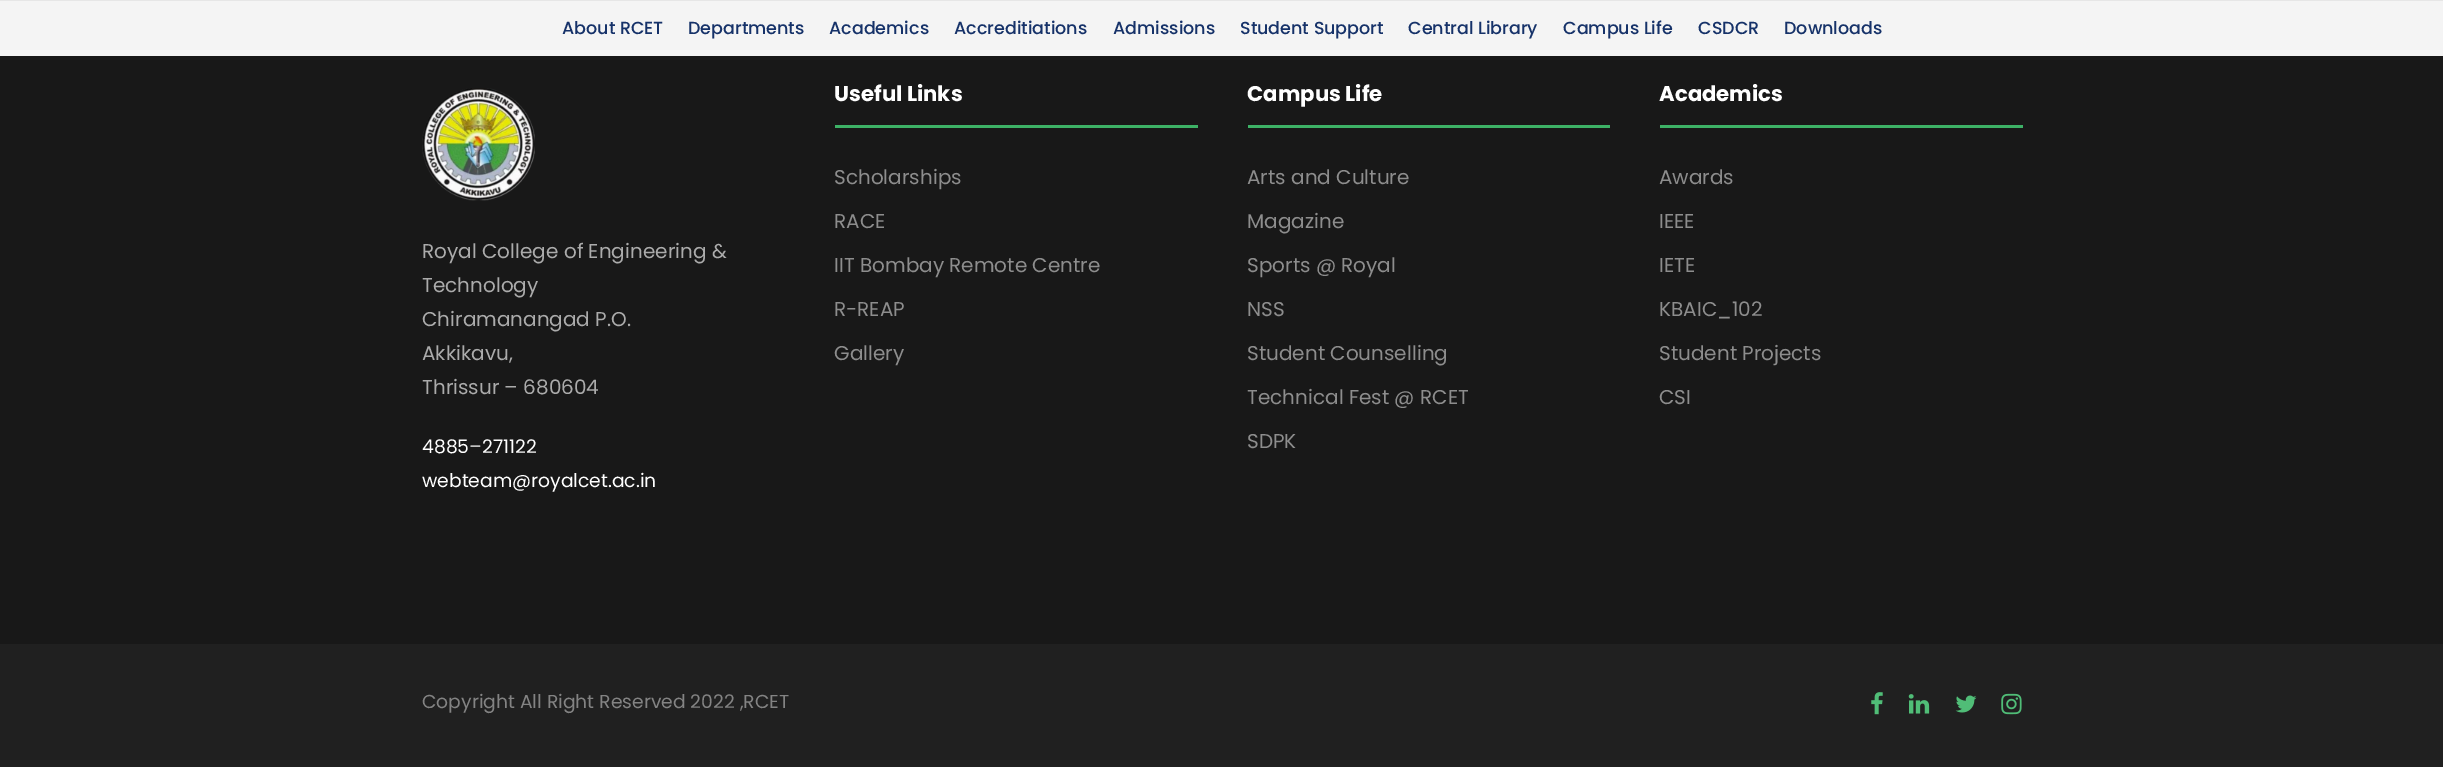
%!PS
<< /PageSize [2443 767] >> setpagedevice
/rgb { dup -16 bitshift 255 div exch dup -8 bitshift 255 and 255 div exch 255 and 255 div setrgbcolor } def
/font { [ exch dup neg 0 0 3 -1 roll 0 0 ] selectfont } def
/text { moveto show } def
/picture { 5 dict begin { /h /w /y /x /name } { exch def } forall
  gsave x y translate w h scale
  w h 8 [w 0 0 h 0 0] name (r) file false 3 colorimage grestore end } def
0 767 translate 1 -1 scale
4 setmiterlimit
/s1 { /Poppins-Medium 17.5 font 16#163269 rgb } def
/s2 { /Poppins-Regular 20 font 16#ABABAB rgb } def
/s3 { /Poppins-Regular 18.75 font 16#FFFFFF rgb } def
/s4 { /Poppins-Bold 21.25 font 16#FFFFFF rgb } def
/s5 { /Poppins-Regular 20 font 16#8D8D8D rgb } def
/s6 { /Poppins-Regular 18.75 font 16#838383 rgb } def
16#181818 rgb
0 0 2443 767 rectfill
16#E6E6E6 rgb
0 0 2443 1 rectfill
16#F4F4F4 rgb
0 1 2443 55 rectfill
s1
(About RCET) 562 34 text
(Departments) 688 34 text
(Academics) 829 34 text
(Accreditiations) 954 34 text
(Admissions) 1113 34 text
(Student Support) 1240 34 text
(Central Library) 1408 34 text
(Campus Life) 1563 34 text
(CSDCR) 1698 34 text
(Downloads) 1784 34 text
(pic1.raw) 422 88 113 113 picture
s2
(Royal College of Engineering &) 422 258 text
(Technology) 422 292 text
(Chiramanangad P.O.) 422 326 text
(Akkikavu,) 422 360 text
(Thrissur – 680604) 422 394 text
s3
(4885–271122) 422 453 text
(webteam@royalcet.ac.in) 422 487 text
16#3DB166 rgb
835 125 363 3 rectfill
s4
(Useful Links) 834 101 text
s5
(Scholarships) 834 184 text
(RACE) 834 228 text
(IIT Bombay Remote Centre) 834 272 text
(R-REAP) 834 316 text
(Gallery) 834 360 text
16#3DB166 rgb
1248 125 362 3 rectfill
s4
(Campus Life) 1247 101 text
s5
(Arts and Culture) 1247 184 text
(Magazine) 1247 228 text
(Sports @ Royal) 1247 272 text
(NSS) 1247 316 text
(Student Counselling) 1247 360 text
(Technical Fest @ RCET) 1247 404 text
(SDPK) 1247 448 text
16#3DB166 rgb
1660 125 363 3 rectfill
s4
(Academics) 1659 101 text
s5
(Awards) 1659 184 text
(IEEE) 1659 228 text
(IETE) 1659 272 text
(KBAIC_102) 1659 316 text
(Student Projects) 1659 360 text
(CSI) 1659 404 text
16#202020 rgb
0 644 2443 123 rectfill
s6
(Copyright All Right Reserved 2022 ,RCET) 422 708 text
(pic2.raw) 1871 692 12 23 picture
(pic3.raw) 1908 694 22 20 picture
(pic4.raw) 1955 695 22 18 picture
(pic5.raw) 2001 693 21 22 picture
showpage
